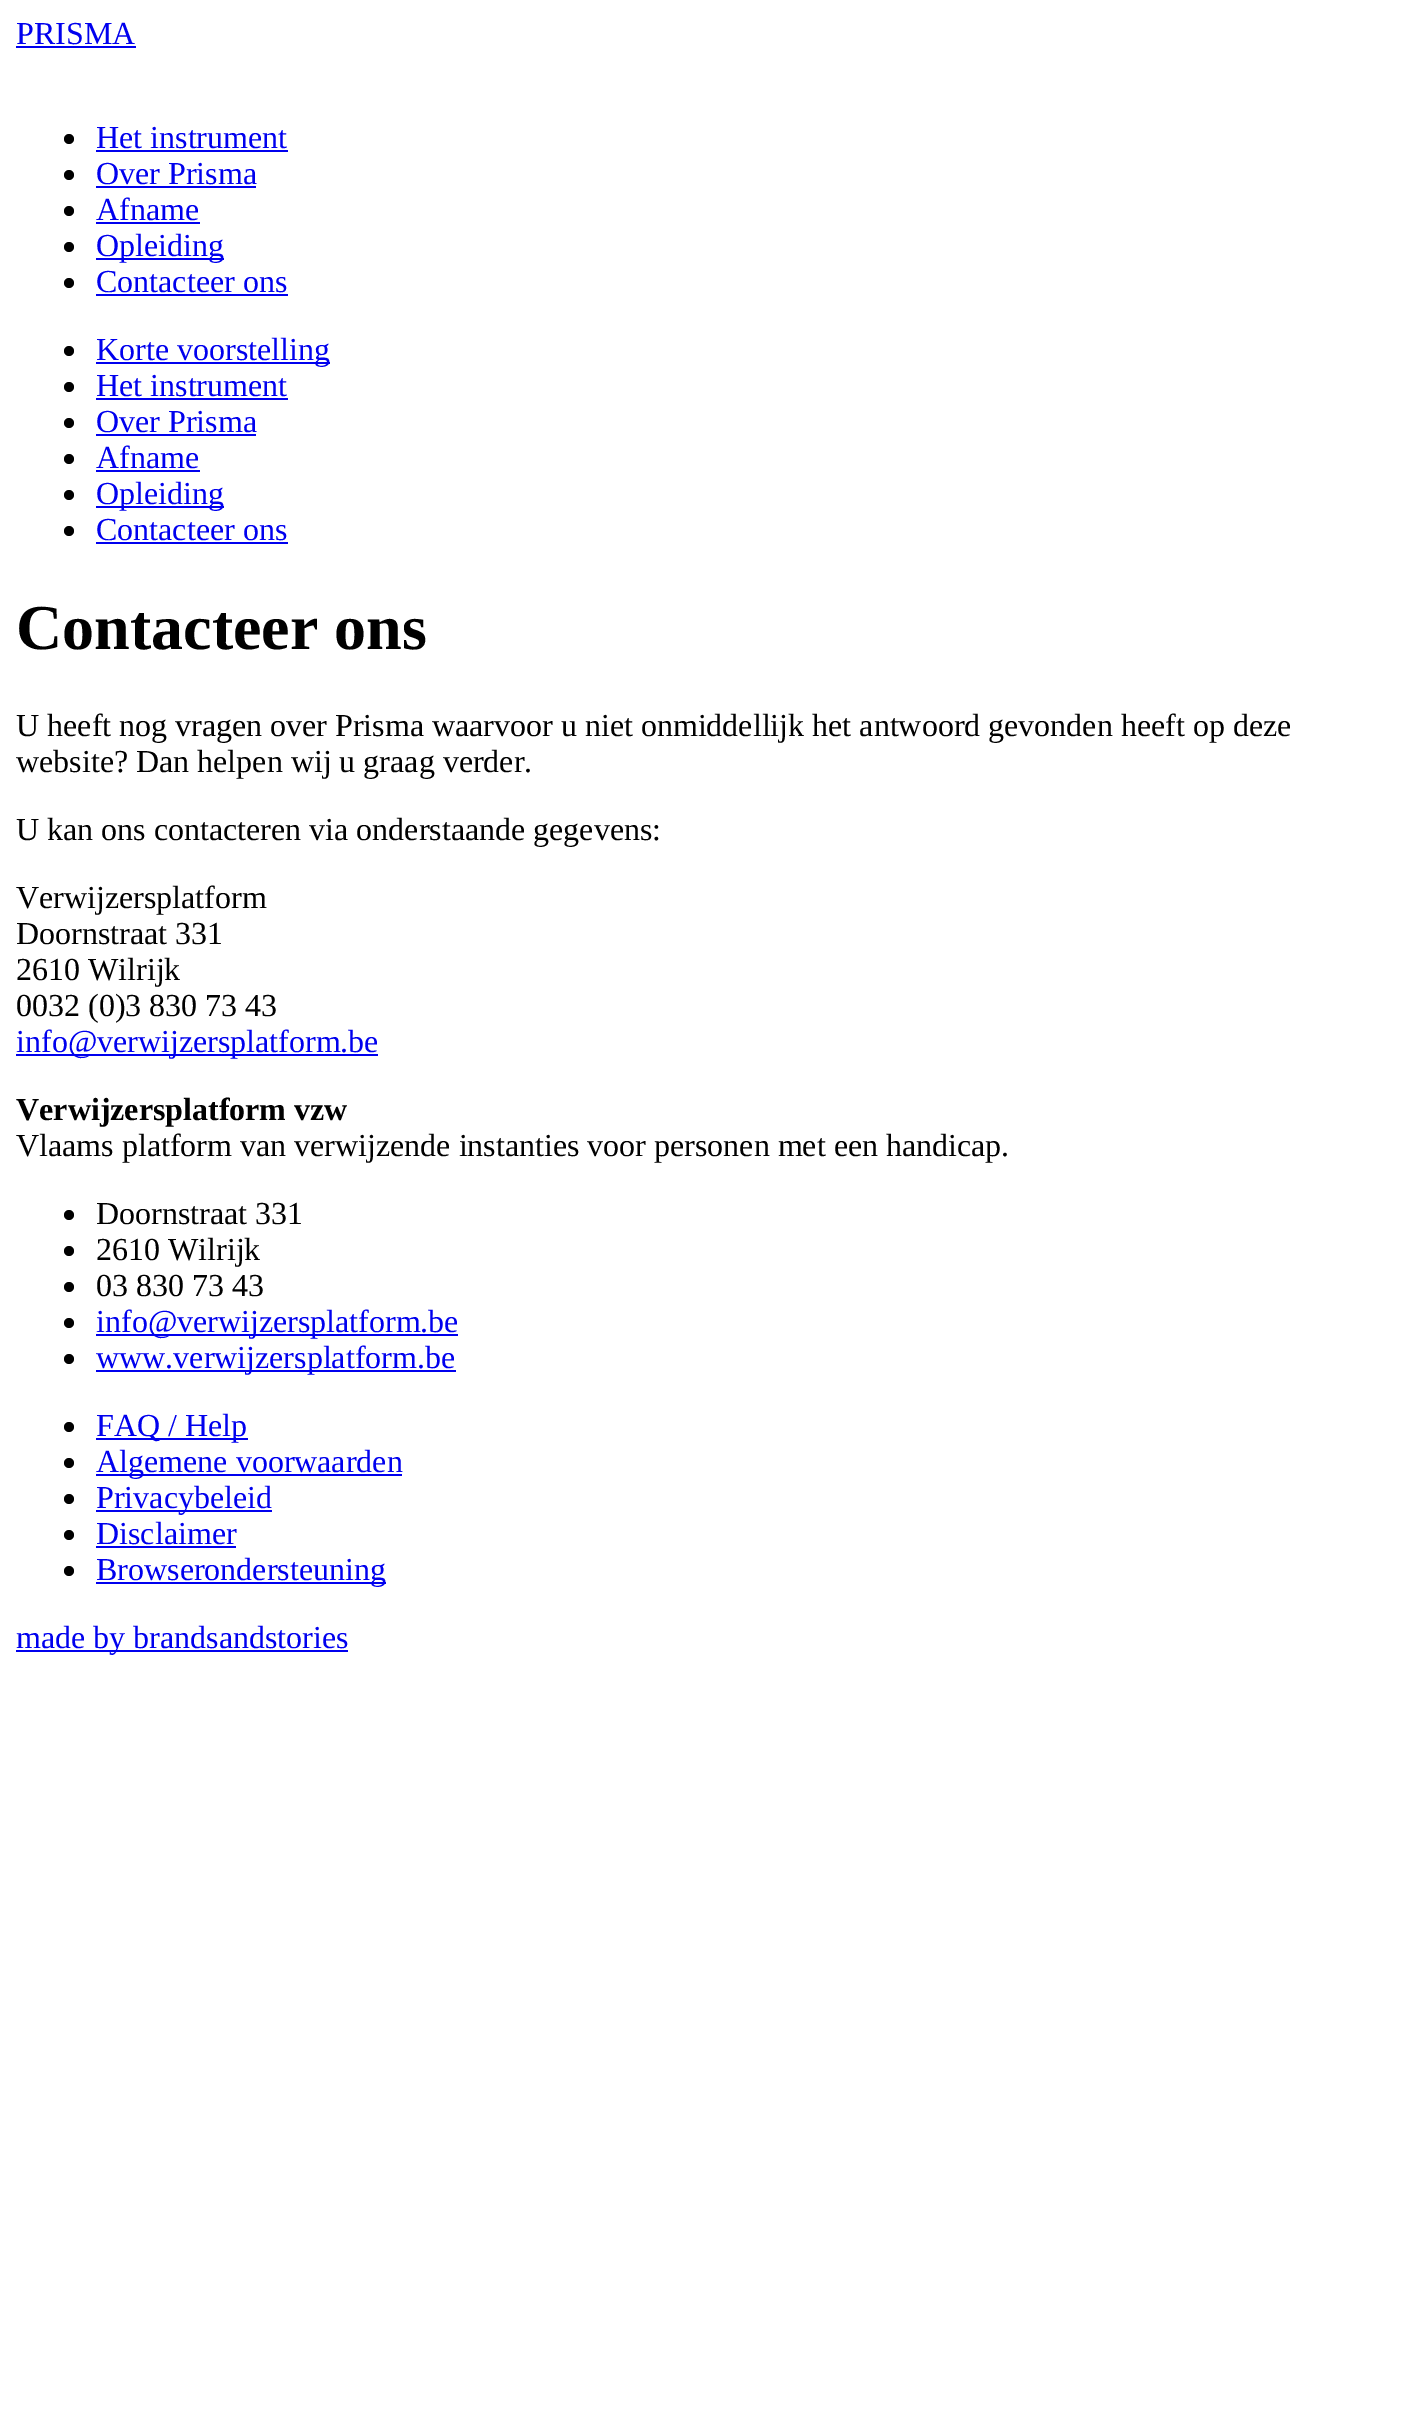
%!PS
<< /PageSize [1419 2422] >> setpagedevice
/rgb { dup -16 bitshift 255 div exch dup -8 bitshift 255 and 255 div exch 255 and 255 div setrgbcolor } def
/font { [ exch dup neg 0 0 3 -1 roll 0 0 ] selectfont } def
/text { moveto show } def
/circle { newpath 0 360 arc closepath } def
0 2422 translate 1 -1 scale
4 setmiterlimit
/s1 { /LiberationSerif-Regular 32 font 16#0000EE rgb } def
/s2 { /LiberationSerif-Bold 64 font 16#000000 rgb } def
/s3 { /LiberationSerif-Regular 32 font 16#000000 rgb } def
/s4 { /LiberationSerif-Bold 32 font 16#000000 rgb } def
16#FFFFFF rgb
0 0 1419 2422 rectfill
s1
(PRISMA) 16 44 text
16 46 120 2 rectfill
16#000000 rgb
69 139 5 circle fill
s1
(Het instrument) 96 148 text
96 150 192 2 rectfill
16#000000 rgb
69 175 5 circle fill
s1
(Over Prisma) 96 184 text
96 186 160 2 rectfill
16#000000 rgb
69 211 5 circle fill
s1
(Afname) 96 220 text
96 222 104 2 rectfill
16#000000 rgb
69 247 5 circle fill
16#0000EE rgb
96 258 128 2 rectfill
(Opleiding) 96 256 text
16#000000 rgb
69 283 5 circle fill
s1
(Contacteer ons) 96 292 text
96 294 192 2 rectfill
16#000000 rgb
69 351 5 circle fill
16#0000EE rgb
96 362 234 2 rectfill
(Korte voorstelling) 96 360 text
16#000000 rgb
69 387 5 circle fill
s1
(Het instrument) 96 396 text
96 398 192 2 rectfill
16#000000 rgb
69 423 5 circle fill
s1
(Over Prisma) 96 432 text
96 434 160 2 rectfill
16#000000 rgb
69 459 5 circle fill
s1
(Afname) 96 468 text
96 470 104 2 rectfill
16#000000 rgb
69 495 5 circle fill
16#0000EE rgb
96 506 128 2 rectfill
(Opleiding) 96 504 text
16#000000 rgb
69 531 5 circle fill
s1
(Contacteer ons) 96 540 text
96 542 192 2 rectfill
s2
(Contacteer ons) 16 649 text
s3
(U heeft nog vragen over Prisma waarvoor u niet onmiddellijk het antwoord gevonden heeft op deze) 16 736 text
(website? Dan helpen wij u graag verder.) 16 772 text
(U kan ons contacteren via onderstaande gegevens:) 16 840 text
(Verwijzersplatform) 16 908 text
(Doornstraat 331) 16 944 text
(2610 Wilrijk) 16 980 text
(0032 \(0\)3 830 73 43) 16 1016 text
16#0000EE rgb
16 1054 362 2 rectfill
(info@verwijzersplatform.be) 16 1052 text
s4
(Verwijzersplatform vzw) 16 1120 text
s3
(Vlaams platform van verwijzende instanties voor personen met een handicap.) 16 1156 text
69 1215 5 circle fill
(Doornstraat 331) 96 1224 text
69 1251 5 circle fill
(2610 Wilrijk) 96 1260 text
69 1287 5 circle fill
(03 830 73 43) 96 1296 text
69 1323 5 circle fill
16#0000EE rgb
96 1334 362 2 rectfill
(info@verwijzersplatform.be) 96 1332 text
16#000000 rgb
69 1359 5 circle fill
16#0000EE rgb
96 1370 360 2 rectfill
(www.verwijzersplatform.be) 96 1368 text
16#000000 rgb
69 1427 5 circle fill
16#0000EE rgb
96 1438 152 2 rectfill
(FAQ / Help) 96 1436 text
16#000000 rgb
69 1463 5 circle fill
16#0000EE rgb
96 1474 306 2 rectfill
(Algemene voorwaarden) 96 1472 text
16#000000 rgb
69 1499 5 circle fill
16#0000EE rgb
96 1510 176 2 rectfill
(Privacybeleid) 96 1508 text
16#000000 rgb
69 1535 5 circle fill
s1
(Disclaimer) 96 1544 text
96 1546 140 2 rectfill
16#000000 rgb
69 1571 5 circle fill
16#0000EE rgb
96 1582 290 2 rectfill
(Browserondersteuning) 96 1580 text
16 1650 332 2 rectfill
(made by brandsandstories) 16 1648 text
showpage
